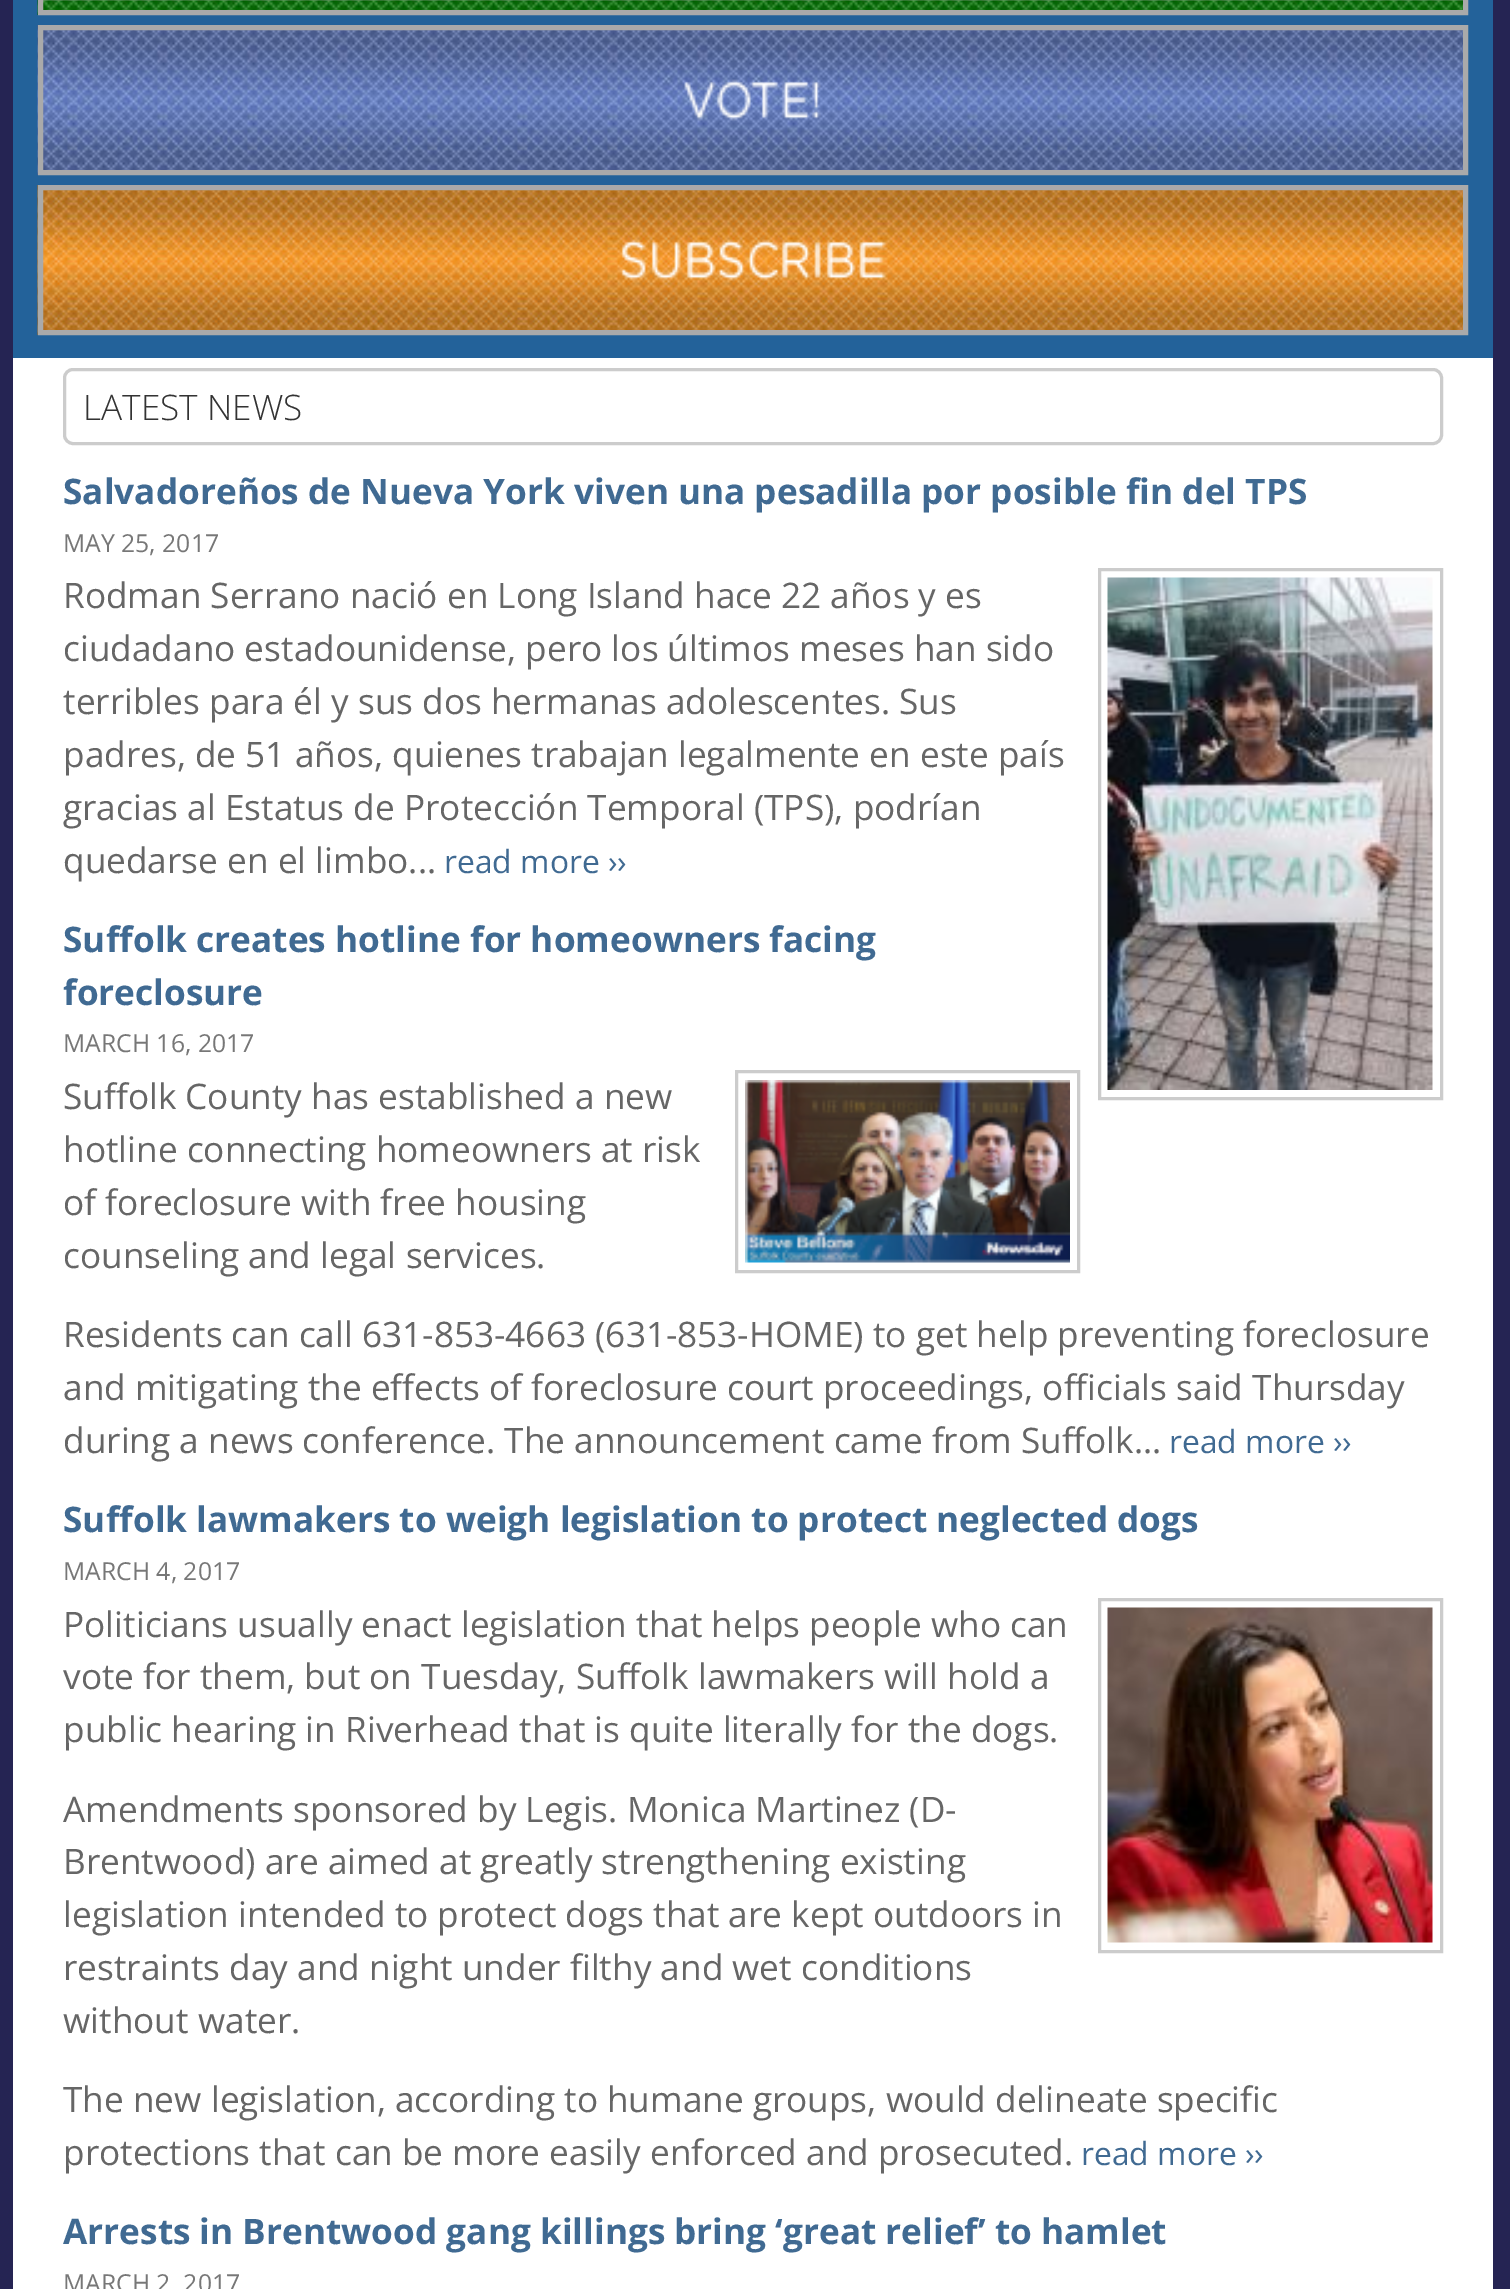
%!PS
<< /PageSize [1510 2289] >> setpagedevice
/rgb { dup -16 bitshift 255 div exch dup -8 bitshift 255 and 255 div exch 255 and 255 div setrgbcolor } def
/font { [ exch dup neg 0 0 3 -1 roll 0 0 ] selectfont } def
/text { moveto show } def
/roundrect { 5 dict begin { /r /h /w /y /x } { exch def } forall
  x r add y moveto x w add y 2 copy h add r arct x w add y h add x 1 index r arct
  x y h add x y r arct x y 2 copy exch w add exch r arct closepath end } def
/picture { 5 dict begin { /h /w /y /x /name } { exch def } forall
  gsave x y translate w h scale
  w h 8 [w 0 0 h 0 0] name (r) file false 3 colorimage grestore end } def
0 2289 translate 1 -1 scale
4 setmiterlimit
/s1 { /OpenSans-Light 35.2 font 16#333333 rgb } def
/s2 { /OpenSans-Bold 35.2 font 16#406A92 rgb } def
/s3 { /OpenSans-Regular 24.75 font 16#777777 rgb } def
/s4 { /OpenSans-Regular 35.2 font 16#666666 rgb } def
/s5 { /OpenSans-Regular 31.75 font 16#406A92 rgb } def
16#252453 rgb
0 0 1510 2289 rectfill
16#23629A rgb
13 0 1480 358 rectfill
(pic1.raw) 37 0 1426 15 picture
16#AAAAAA rgb
5 setlinewidth
40.5 -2.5 1425 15 rectstroke
(pic2.raw) 37 25 1426 150 picture
40.5 27.5 1425 145 rectstroke
(pic3.raw) 684 79 137 42 picture
(pic4.raw) 37 185 1426 150 picture
40.5 187.5 1425 145 rectstroke
(pic5.raw) 619 239 267 42 picture
16#FFFFFF rgb
13 358 1480 1931 rectfill
16#CCCCCC rgb
3 setlinewidth
64.5 369.5 1377 74 8.5 roundrect stroke
s1
(LATEST NEWS) 83 420 text
s2
(Salvadoreños de Nueva York viven una pesadilla por posible fin del TPS) 63 504 text
s3
(MAY 25, 2017) 63 552 text
s4
(Rodman Serrano nació en Long Island hace 22 años y es) 63 608 text
(ciudadano estadounidense, pero los últimos meses han sido) 63 661 text
(terribles para él y sus dos hermanas adolescentes. Sus) 63 714 text
(padres, de 51 años, quienes trabajan legalmente en este país) 63 767 text
(gracias al Estatus de Protección Temporal \(TPS\), podrían) 63 820 text
(quedarse en el limbo...) 63 873 text
s5
(read more ››) 444 873 text
16#CCCCCC rgb
1099.5 569.5 342 529 rectstroke
(pic6.raw) 1107 577 326 513 picture
s2
(Suffolk creates hotline for homeowners facing) 63 952 text
(foreclosure) 63 1005 text
s3
(MARCH 16, 2017) 63 1052 text
16#CCCCCC rgb
736.5 1071.5 342 200 rectstroke
(pic7.raw) 745 1080 325 183 picture
s4
(Suffolk County has established a new) 63 1109 text
(hotline connecting homeowners at risk) 63 1162 text
(of foreclosure with free housing) 63 1215 text
(counseling and legal services.) 63 1268 text
(Residents can call 631-853-4663 \(631-853-HOME\) to get help preventing foreclosure) 63 1347 text
(and mitigating the effects of foreclosure court proceedings, officials said Thursday) 63 1400 text
(during a news conference. The announcement came from Suffolk...) 63 1453 text
s5
(read more ››) 1169 1453 text
s2
(Suffolk lawmakers to weigh legislation to protect neglected dogs) 63 1532 text
s3
(MARCH 4, 2017) 63 1580 text
16#CCCCCC rgb
1099.5 1599.5 342 352 rectstroke
(pic8.raw) 1107 1607 326 336 picture
s4
(Politicians usually enact legislation that helps people who can) 63 1637 text
(vote for them, but on Tuesday, Suffolk lawmakers will hold a) 63 1689 text
(public hearing in Riverhead that is quite literally for the dogs.) 63 1742 text
(Amendments sponsored by Legis. Monica Martinez \(D-) 63 1822 text
(Brentwood\) are aimed at greatly strengthening existing) 63 1874 text
(legislation intended to protect dogs that are kept outdoors in) 63 1927 text
(restraints day and night under filthy and wet conditions) 63 1980 text
(without water.) 63 2033 text
(The new legislation, according to humane groups, would delineate specific) 63 2112 text
(protections that can be more easily enforced and prosecuted.) 63 2165 text
s5
(read more ››) 1081 2165 text
s2
(Arrests in Brentwood gang killings bring ‘great relief’ to hamlet) 63 2244 text
s3
(MARCH 2, 2017) 63 2292 text
showpage
